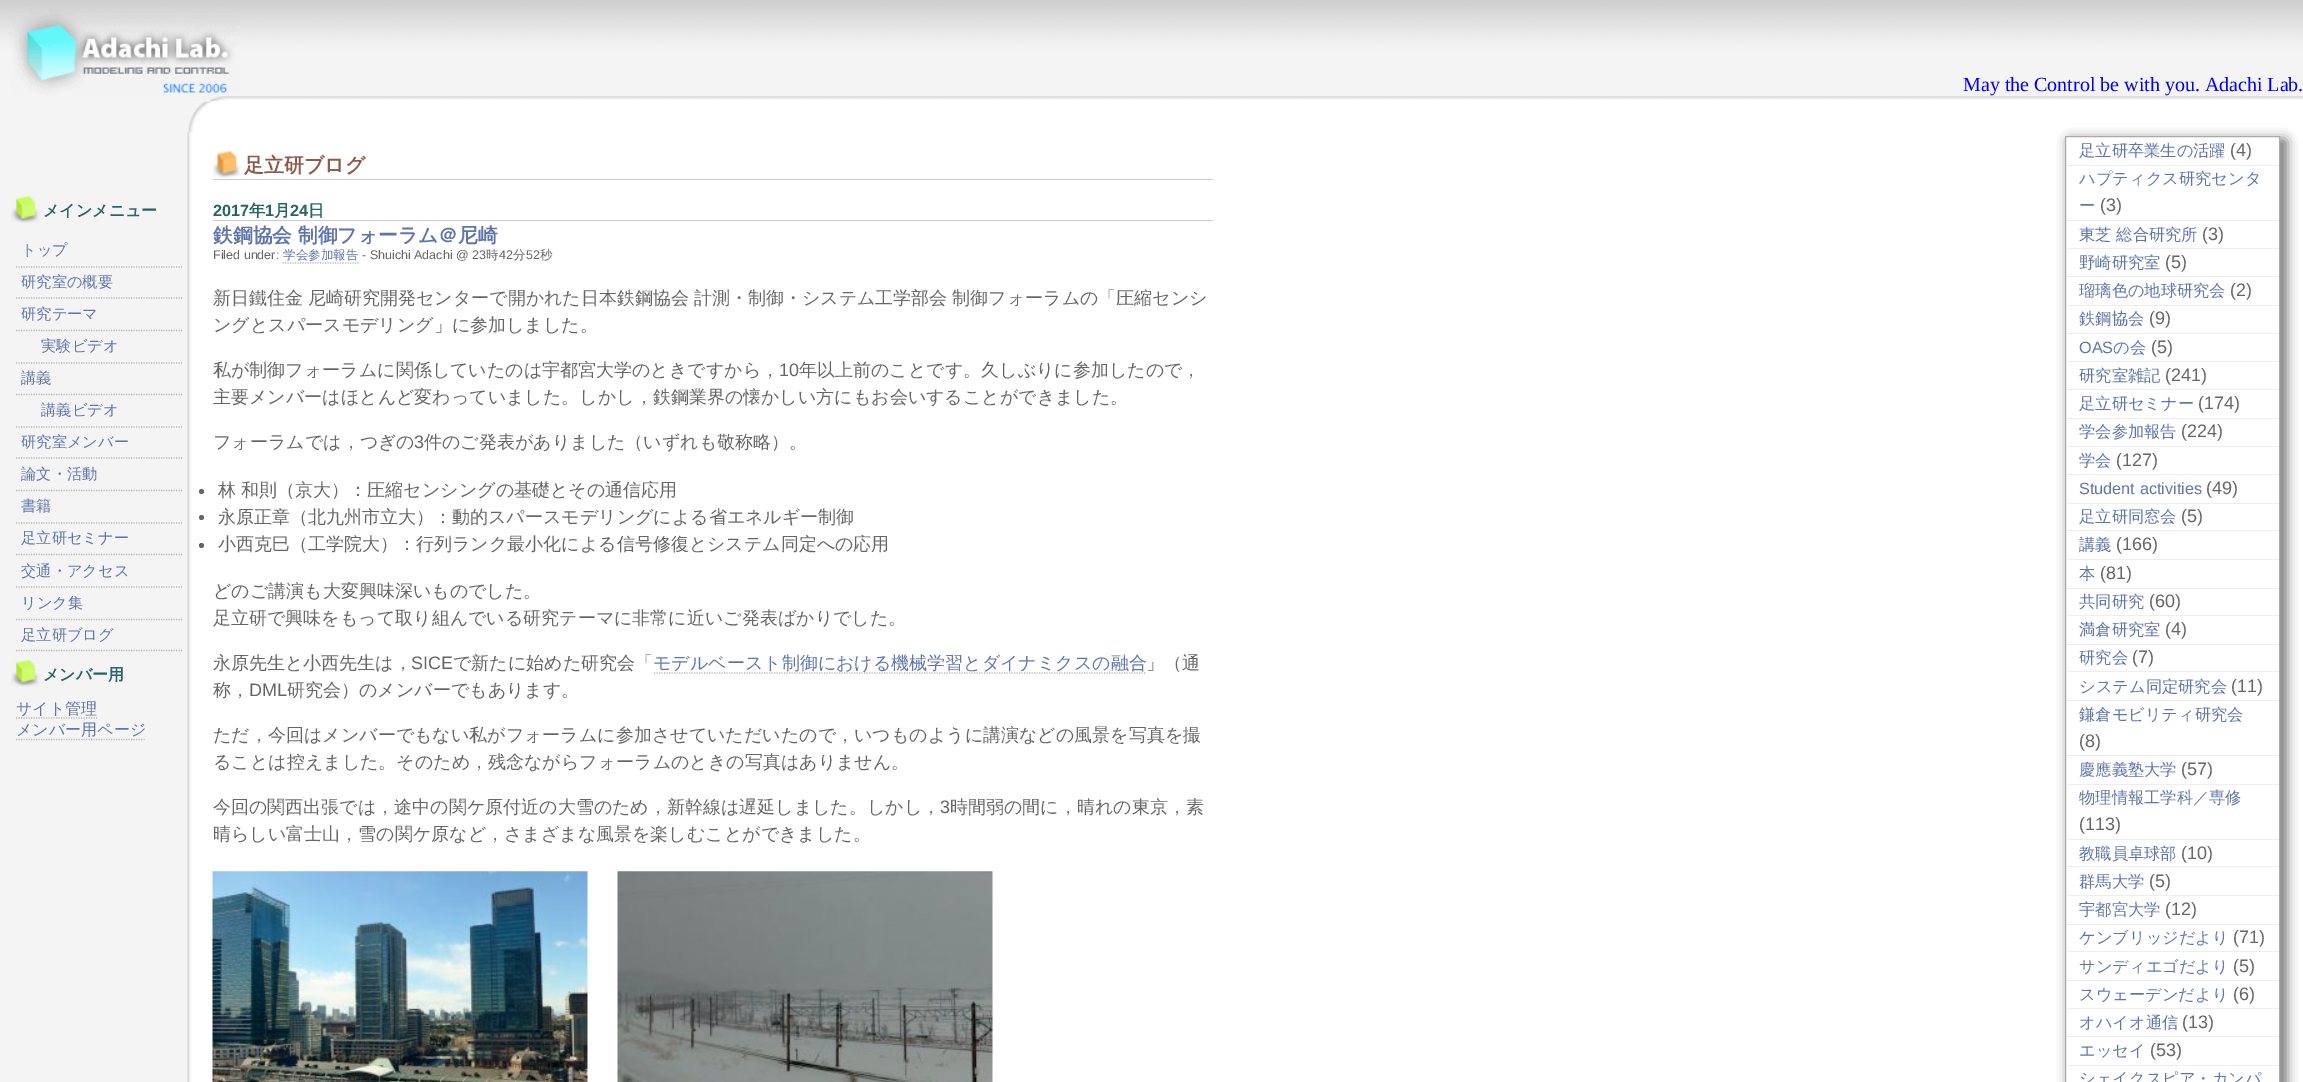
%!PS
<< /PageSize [2303 1082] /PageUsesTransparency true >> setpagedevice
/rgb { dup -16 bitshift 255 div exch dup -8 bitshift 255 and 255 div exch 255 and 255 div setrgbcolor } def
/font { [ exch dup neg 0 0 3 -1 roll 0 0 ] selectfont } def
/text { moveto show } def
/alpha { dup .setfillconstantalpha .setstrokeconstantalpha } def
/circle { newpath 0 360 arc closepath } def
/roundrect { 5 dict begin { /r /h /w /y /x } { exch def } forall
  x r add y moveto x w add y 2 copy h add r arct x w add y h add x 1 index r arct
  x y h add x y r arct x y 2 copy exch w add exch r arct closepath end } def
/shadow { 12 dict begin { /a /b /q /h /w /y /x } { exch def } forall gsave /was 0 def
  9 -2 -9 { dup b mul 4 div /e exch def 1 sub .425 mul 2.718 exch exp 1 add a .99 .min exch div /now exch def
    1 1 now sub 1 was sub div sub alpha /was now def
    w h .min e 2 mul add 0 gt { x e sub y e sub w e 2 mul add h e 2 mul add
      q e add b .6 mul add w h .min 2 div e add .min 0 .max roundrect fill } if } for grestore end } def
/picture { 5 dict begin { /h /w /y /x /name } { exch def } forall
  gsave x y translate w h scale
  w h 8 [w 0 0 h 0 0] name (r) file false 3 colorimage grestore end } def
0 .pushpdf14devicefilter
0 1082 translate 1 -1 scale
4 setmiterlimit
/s1 { /LiberationSerif-Regular 20 font 16#0000FF rgb } def
/s2 { /WenQuanYiZenHei-Bold 16 font 16#286367 rgb } def
/s3 { /WenQuanYiZenHei-Medium 15.25 font 16#6075AA rgb } def
/s4 { /WenQuanYiZenHei-Medium 16 font 16#6075AA rgb } def
/s5 { /WenQuanYiZenHei-Bold 20 font 16#8B5B4E rgb } def
/s6 { /LiberationSans-Bold 16.25 font 16#286367 rgb } def
/s7 { /WenQuanYiZenHei-Bold 16.25 font 16#286367 rgb } def
/s8 { /WenQuanYiZenHei-Bold 19.75 font 16#6075AA rgb } def
/s9 { /LiberationSans-Regular 12.5 font 16#666666 rgb } def
/s10 { /WenQuanYiZenHei-Medium 12.5 font 16#6075AA rgb } def
/s11 { /WenQuanYiZenHei-Medium 12.5 font 16#666666 rgb } def
/s12 { /WenQuanYiZenHei-Medium 18 font 16#666666 rgb } def
/s13 { /LiberationSans-Regular 18 font 16#666666 rgb } def
/s14 { /WenQuanYiZenHei-Medium 18 font 16#6075AA rgb } def
/s15 { /WenQuanYiZenHei-Medium 16.25 font 16#6075AA rgb } def
/s16 { /LiberationSans-Regular 16.25 font 16#6075AA rgb } def
16#FFFFFF rgb
0 0 2303 1082 rectfill
(pic1.raw) 0 101 191 981 picture
(pic5.raw) 187 101 26 32 picture
(pic2.raw) 0 0 2303 102 picture
(pic3.raw) 0 96 225 6 picture
(pic4.raw) 10 9 230 86 picture
s1
(May the Control be with you. Adachi Lab.) 1963 91 text
(pic6.raw) 11 196 29 27 picture
s2
(メインメニュー) 43 216 text
16#BBBBBB rgb
1.2 setlinewidth
[1.25 1.25] 0 setdash
16 267 moveto 182.5 267 lineto stroke
s3
(トップ) 21 255 text
16#BBBBBB rgb
16 298 moveto 182.5 298 lineto stroke
s3
(研究室の概要) 21 287 text
16#BBBBBB rgb
16 330.5 moveto 182.5 330.5 lineto stroke
s3
(研究テーマ) 21 319 text
16#BBBBBB rgb
16 363 moveto 182.5 363 lineto stroke
s3
(実験ビデオ) 41 351 text
16#BBBBBB rgb
16 394.5 moveto 182.5 394.5 lineto stroke
s3
(講義) 21 383 text
16#BBBBBB rgb
16 427 moveto 182.5 427 lineto stroke
s3
(講義ビデオ) 41 415 text
16#BBBBBB rgb
16 458 moveto 182.5 458 lineto stroke
s3
(研究室メンバー) 21 447 text
16#BBBBBB rgb
16 490.5 moveto 182.5 490.5 lineto stroke
s3
(論文・活動) 21 479 text
16#BBBBBB rgb
16 523 moveto 182.5 523 lineto stroke
s3
(書籍) 21 511 text
16#BBBBBB rgb
16 554.5 moveto 182.5 554.5 lineto stroke
s3
(足立研セミナー) 21 543 text
16#BBBBBB rgb
16 587 moveto 182.5 587 lineto stroke
s3
(交通・アクセス) 21 576 text
16#BBBBBB rgb
16 619.5 moveto 182.5 619.5 lineto stroke
s3
(リンク集) 21 608 text
16#BBBBBB rgb
16 650.5 moveto 182.5 650.5 lineto stroke
s3
(足立研ブログ) 21 640 text
(pic7.raw) 11 659 29 28 picture
s2
(メンバー用) 43 680 text
s4
(サイト管理) 16 714 text
16#BBBBBB rgb
16 718 moveto 97.5 718 lineto stroke
s4
(メンバー用ページ) 16 735 text
16#BBBBBB rgb
16 739.5 moveto 146 739.5 lineto stroke
(pic8.raw) 212 151 29 27 picture
16#CCCCCC rgb
213 179 1000 1 rectfill
s5
(足立研ブログ) 244 172 text
s6
(2017) 213 216 text
s7
(年) 249 216 text
s6
(1) 265 216 text
s7
(月) 274 216 text
s6
(24) 290 216 text
s7
(日) 308 216 text
16#CCCCCC rgb
213 220 1000 1 rectfill
s8
(鉄鋼協会 制御フォーラム＠尼崎) 213 242 text
s9
(Filed under:) 213 259 text
s10
(学会参加報告) 283 259 text
16#BBBBBB rgb
282.5 263 moveto 359 263 lineto stroke
s9
(- Shuichi Adachi @ 23) 362 259 text
s11
(時) 486 259 text
s9
(42) 499 259 text
s11
(分) 513 259 text
s9
(52) 526 259 text
s11
(秒) 540 259 text
/WenQuanYiZenHei-Medium 18 font
213 304 moveto -0.5 0 32 (新日鐵住金 尼崎研究開発センターで開かれた日本鉄鋼協会 計測・制御・システム工学部会 制御フォーラムの「圧縮センシ) widthshow
(ングとスパースモデリング」に参加しました。) 213 331 text
(私が制御フォーラムに関係していたのは宇都宮大学のときですから，) 213 376 text
s13
(10) 779 376 text
s12
(年以上前のことです。久しぶりに参加したので，) 799 376 text
(主要メンバーはほとんど変わっていました。しかし，鉄鋼業界の懐かしい方にもお会いすることができました。) 213 403 text
(フォーラムでは，つぎの) 213 448 text
s13
(3) 414 448 text
s12
(件のご発表がありました（いずれも敬称略）。) 424 448 text
201.5 491.5 2.5 circle fill
(林 和則（京大）：圧縮センシングの基礎とその通信応用) 218 496 text
201.5 517.5 2.5 circle fill
(永原正章（北九州市立大）：動的スパースモデリングによる省エネルギー制御) 218 523 text
201.5 545.5 2.5 circle fill
(小西克巳（工学院大）：行列ランク最小化による信号修復とシステム同定への応用) 218 550 text
(どのご講演も大変興味深いものでした。) 213 597 text
(足立研で興味をもって取り組んでいる研究テーマに非常に近いご発表ばかりでした。) 213 624 text
(永原先生と小西先生は，) 213 669 text
s13
(SICE) 411 669 text
s12
(で新たに始めた研究会「) 453 669 text
16#BBBBBB rgb
654 673 moveto 1146 673 lineto stroke
s14
(モデルベースト制御における機械学習とダイナミクスの融合) 653 669 text
s12
(」（通) 1146 669 text
(称，) 213 696 text
s13
(DML) 249 696 text
s12
(研究会）のメンバーでもあります。) 287 696 text
(ただ，今回はメンバーでもない私がフォーラムに参加させていただいたので，いつものように講演などの風景を写真を撮) 213 741 text
(ることは控えました。そのため，残念ながらフォーラムのときの写真はありません。) 213 768 text
(今回の関西出張では，途中の関ケ原付近の大雪のため，新幹線は遅延しました。しかし，) 213 813 text
s13
(3) 940 813 text
s12
(時間弱の間に，晴れの東京，素) 950 813 text
(晴らしい富士山，雪の関ケ原など，さまざまな風景を楽しむことができました。) 213 840 text
(pic9.raw) 212 871 376 211 picture
(pic10.raw) 617 871 376 211 picture
16#888888 rgb
2070 141 215 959 0 6 1 shadow
2070 141 215 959 0 6 1 shadow
16#FFFFFF rgb
2065.5 136.5 moveto 2279.5 136.5 lineto 2279.5 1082.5 lineto 2065.5 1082.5 lineto closepath gsave fill grestore
16#AAAAAA rgb
1 setlinewidth
[] 0 setdash
stroke
16#EEEEEE rgb
2066 165 213 1 rectfill
s15
(足立研卒業生の活躍) 2079 156 text
s13
(\(4\)) 2230 156 text
16#EEEEEE rgb
2066 220 213 1 rectfill
s15
(ハプティクス研究センタ) 2079 184 text
(ー) 2079 211 text
s13
(\(3\)) 2100 211 text
16#EEEEEE rgb
2066 248 213 1 rectfill
s15
(東芝 総合研究所) 2079 240 text
s13
(\(3\)) 2202 240 text
16#EEEEEE rgb
2066 276 213 1 rectfill
s15
(野崎研究室) 2079 268 text
s13
(\(5\)) 2165 268 text
16#EEEEEE rgb
2066 305 213 1 rectfill
s15
(瑠璃色の地球研究会) 2079 296 text
s13
(\(2\)) 2230 296 text
16#EEEEEE rgb
2066 333 213 1 rectfill
s15
(鉄鋼協会) 2079 324 text
s13
(\(9\)) 2149 324 text
16#EEEEEE rgb
2066 361 213 1 rectfill
s16
(OAS) 2079 353 text
s15
(の会) 2113 353 text
s13
(\(5\)) 2151 353 text
16#EEEEEE rgb
2066 389 213 1 rectfill
s15
(研究室雑記) 2079 381 text
s13
(\(241\)) 2165 381 text
16#EEEEEE rgb
2066 418 213 1 rectfill
s15
(足立研セミナー) 2079 409 text
s13
(\(174\)) 2198 409 text
16#EEEEEE rgb
2066 446 213 1 rectfill
s15
(学会参加報告) 2079 437 text
s13
(\(224\)) 2181 437 text
16#EEEEEE rgb
2066 474 213 1 rectfill
s15
(学会) 2079 466 text
s13
(\(127\)) 2116 466 text
16#EEEEEE rgb
2066 503 213 1 rectfill
s16
(Student activities) 2079 494 text
s13
(\(49\)) 2206 494 text
16#EEEEEE rgb
2066 530 213 1 rectfill
s15
(足立研同窓会) 2079 522 text
s13
(\(5\)) 2181 522 text
16#EEEEEE rgb
2066 559 213 1 rectfill
s15
(講義) 2079 550 text
s13
(\(166\)) 2116 550 text
16#EEEEEE rgb
2066 588 213 1 rectfill
s15
(本) 2079 579 text
s13
(\(81\)) 2100 579 text
16#EEEEEE rgb
2066 615 213 1 rectfill
s15
(共同研究) 2079 607 text
s13
(\(60\)) 2149 607 text
16#EEEEEE rgb
2066 644 213 1 rectfill
s15
(満倉研究室) 2079 635 text
s13
(\(4\)) 2165 635 text
16#EEEEEE rgb
2066 671 213 1 rectfill
s15
(研究会) 2079 663 text
s13
(\(7\)) 2132 663 text
16#EEEEEE rgb
2066 700 213 1 rectfill
s15
(システム同定研究会) 2079 692 text
s13
(\(11\)) 2231 692 text
16#EEEEEE rgb
2066 755 213 1 rectfill
s15
(鎌倉モビリティ研究会) 2079 720 text
s13
(\(8\)) 2079 747 text
16#EEEEEE rgb
2066 784 213 1 rectfill
s15
(慶應義塾大学) 2079 775 text
s13
(\(57\)) 2181 775 text
16#EEEEEE rgb
2066 839 213 1 rectfill
s15
(物理情報工学科／専修) 2079 803 text
s13
(\(113\)) 2079 830 text
16#EEEEEE rgb
2066 866 213 1 rectfill
s15
(教職員卓球部) 2079 859 text
s13
(\(10\)) 2181 859 text
16#EEEEEE rgb
2066 895 213 1 rectfill
s15
(群馬大学) 2079 887 text
s13
(\(5\)) 2149 887 text
16#EEEEEE rgb
2066 924 213 1 rectfill
s15
(宇都宮大学) 2079 915 text
s13
(\(12\)) 2165 915 text
16#EEEEEE rgb
2066 951 213 1 rectfill
s15
(ケンブリッジだより) 2079 943 text
s13
(\(71\)) 2233 943 text
16#EEEEEE rgb
2066 980 213 1 rectfill
s15
(サンディエゴだより) 2079 972 text
s13
(\(5\)) 2233 972 text
16#EEEEEE rgb
2066 1008 213 1 rectfill
s15
(スウェーデンだより) 2079 1000 text
s13
(\(6\)) 2233 1000 text
16#EEEEEE rgb
2066 1036 213 1 rectfill
s15
(オハイオ通信) 2079 1028 text
s13
(\(13\)) 2182 1028 text
16#EEEEEE rgb
2066 1065 213 1 rectfill
s15
(エッセイ) 2079 1056 text
s13
(\(53\)) 2150 1056 text
s15
(シェイクスピア・カンパ) 2079 1084 text
.poppdf14devicefilter showpage
